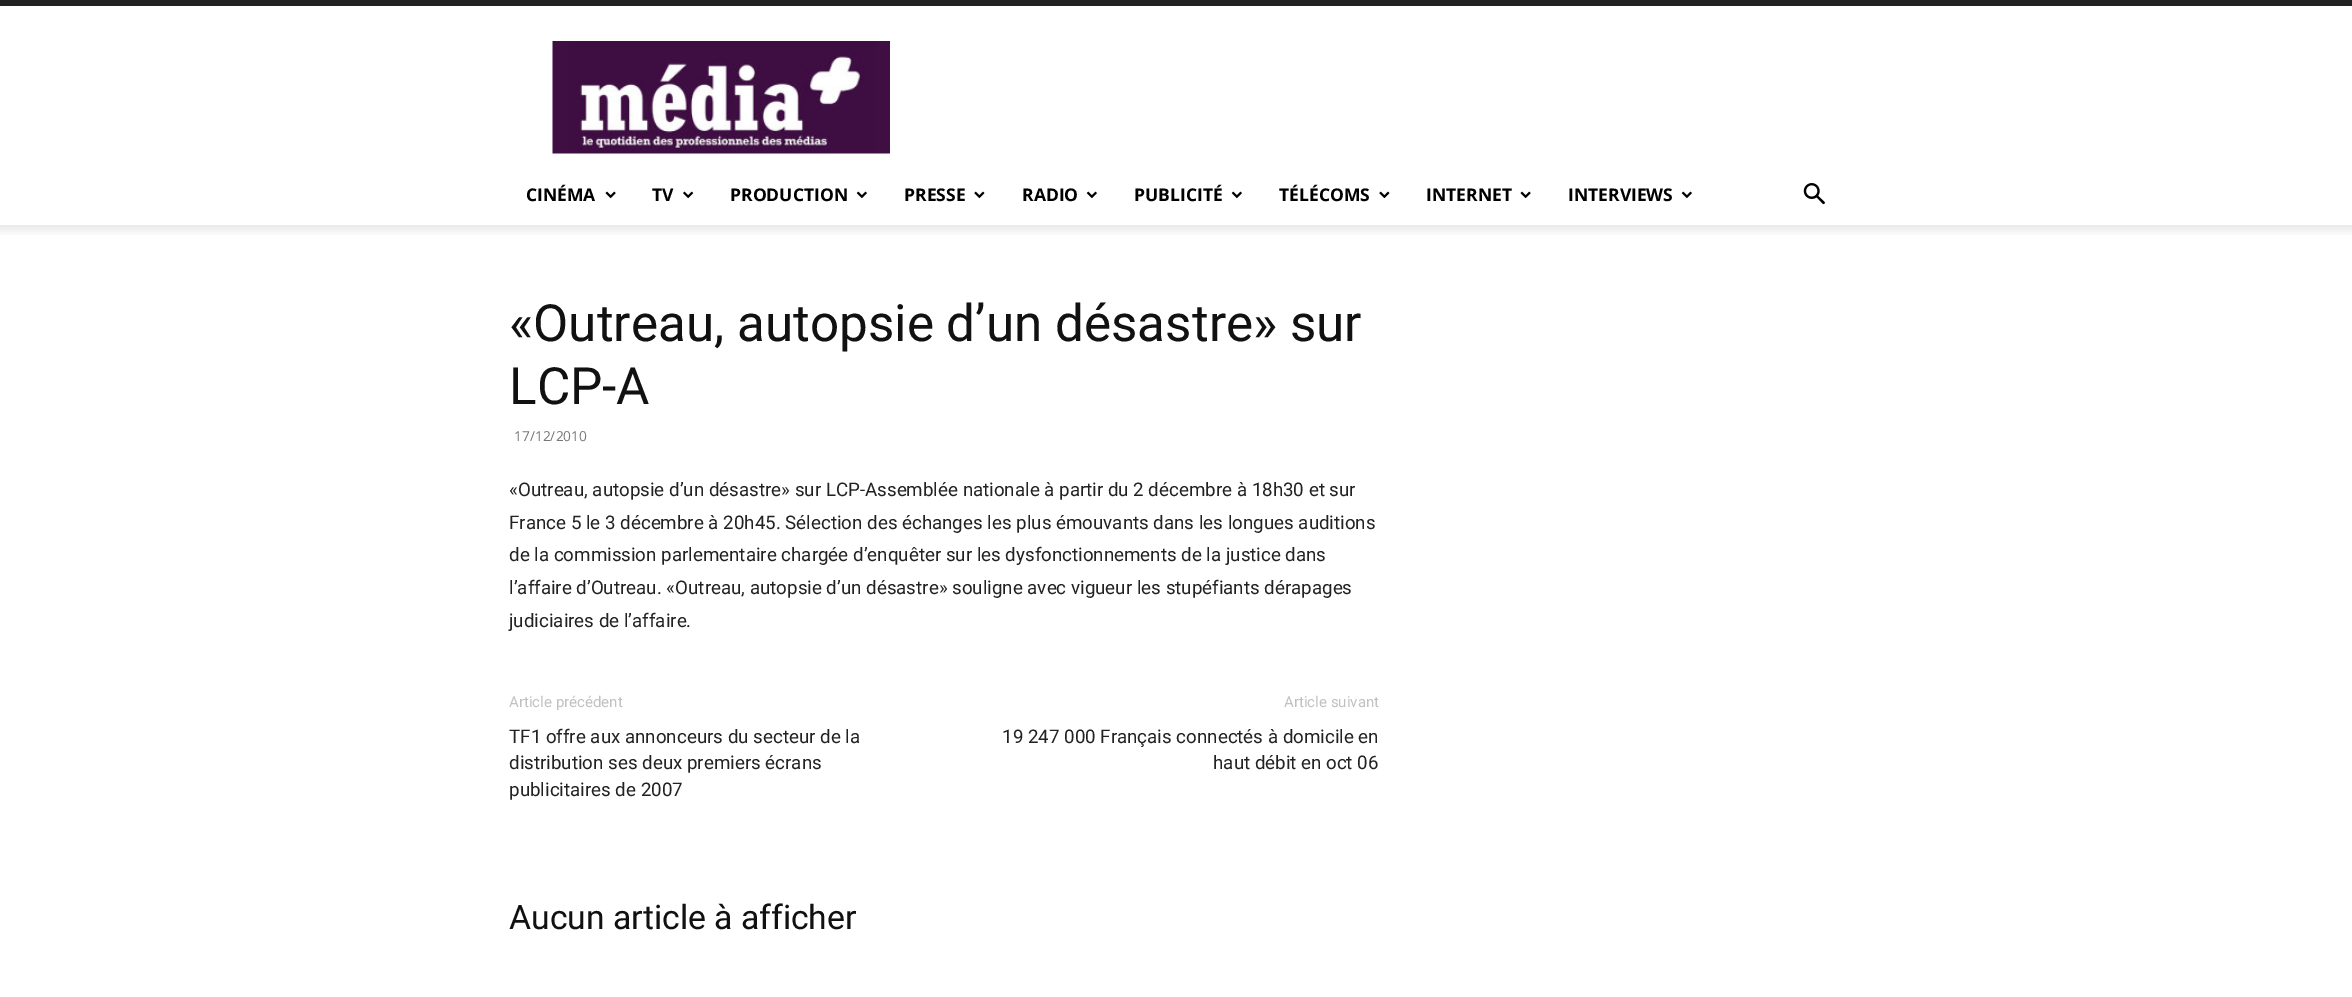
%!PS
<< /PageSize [2352 997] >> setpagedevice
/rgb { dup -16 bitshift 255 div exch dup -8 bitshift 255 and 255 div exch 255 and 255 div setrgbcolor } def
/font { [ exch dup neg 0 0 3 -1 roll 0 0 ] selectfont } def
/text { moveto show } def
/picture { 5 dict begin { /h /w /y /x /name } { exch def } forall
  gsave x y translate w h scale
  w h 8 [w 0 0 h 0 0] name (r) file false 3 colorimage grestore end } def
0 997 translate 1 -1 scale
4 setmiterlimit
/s1 { /OpenSans-Bold 17.5 font 16#000000 rgb } def
/s2 { /Roboto-Regular 51.25 font 16#111111 rgb } def
/s3 { /OpenSans-Regular 13.75 font 16#767676 rgb } def
/s4 { /Roboto-Regular 18.75 font 16#222222 rgb } def
/s5 { /Roboto-Regular 15 font 16#C1C1C1 rgb } def
/s6 { /Roboto-Regular 33.75 font 16#111111 rgb } def
16#FFFFFF rgb
0 0 2352 997 rectfill
16#222222 rgb
0 0 2352 6 rectfill
(pic1.raw) 552 41 338 113 picture
s1
(CINÉMA) 526 201 text
(pic2.raw) 605 191 11 8 picture
(TV) 652 201 text
(pic3.raw) 683 191 11 8 picture
(PRODUCTION) 730 201 text
(pic4.raw) 856 191 11 8 picture
(PRESSE) 904 201 text
(pic5.raw) 974 191 11 8 picture
(RADIO) 1022 201 text
(pic4.raw) 1086 191 11 8 picture
(PUBLICITÉ) 1134 201 text
(pic4.raw) 1231 191 11 8 picture
(TÉLÉCOMS) 1279 201 text
(pic5.raw) 1379 191 11 8 picture
(INTERNET) 1426 201 text
(pic2.raw) 1520 191 11 8 picture
(INTERVIEWS) 1568 201 text
(pic4.raw) 1681 191 11 8 picture
(pic6.raw) 1803 183 22 22 picture
(pic7.raw) 0 225 2352 10 picture
s2
(«Outreau, autopsie d’un désastre» sur) 509 341 text
(LCP-A) 509 404 text
s3
(17/12/2010) 514 441 text
s4
(«Outreau, autopsie d’un désastre» sur LCP-Assemblée nationale à partir du 2 décembre à 18h30 et sur) 509 496 text
(France 5 le 3 décembre à 20h45. Sélection des échanges les plus émouvants dans les longues auditions) 509 529 text
(de la commission parlementaire chargée d’enquêter sur les dysfonctionnements de la justice dans) 509 561 text
(l’affaire d’Outreau. «Outreau, autopsie d’un désastre» souligne avec vigueur les stupéfiants dérapages) 509 594 text
(judiciaires de l’affaire.) 509 627 text
s5
(Article précédent) 509 707 text
s4
(TF1 offre aux annonceurs du secteur de la) 509 743 text
(distribution ses deux premiers écrans) 509 769 text
(publicitaires de 2007) 509 796 text
s5
(Article suivant) 1284 707 text
s4
(19 247 000 Français connectés à domicile en) 1002 743 text
(haut débit en oct 06) 1213 769 text
s6
(Aucun article à afficher) 509 929 text
showpage
